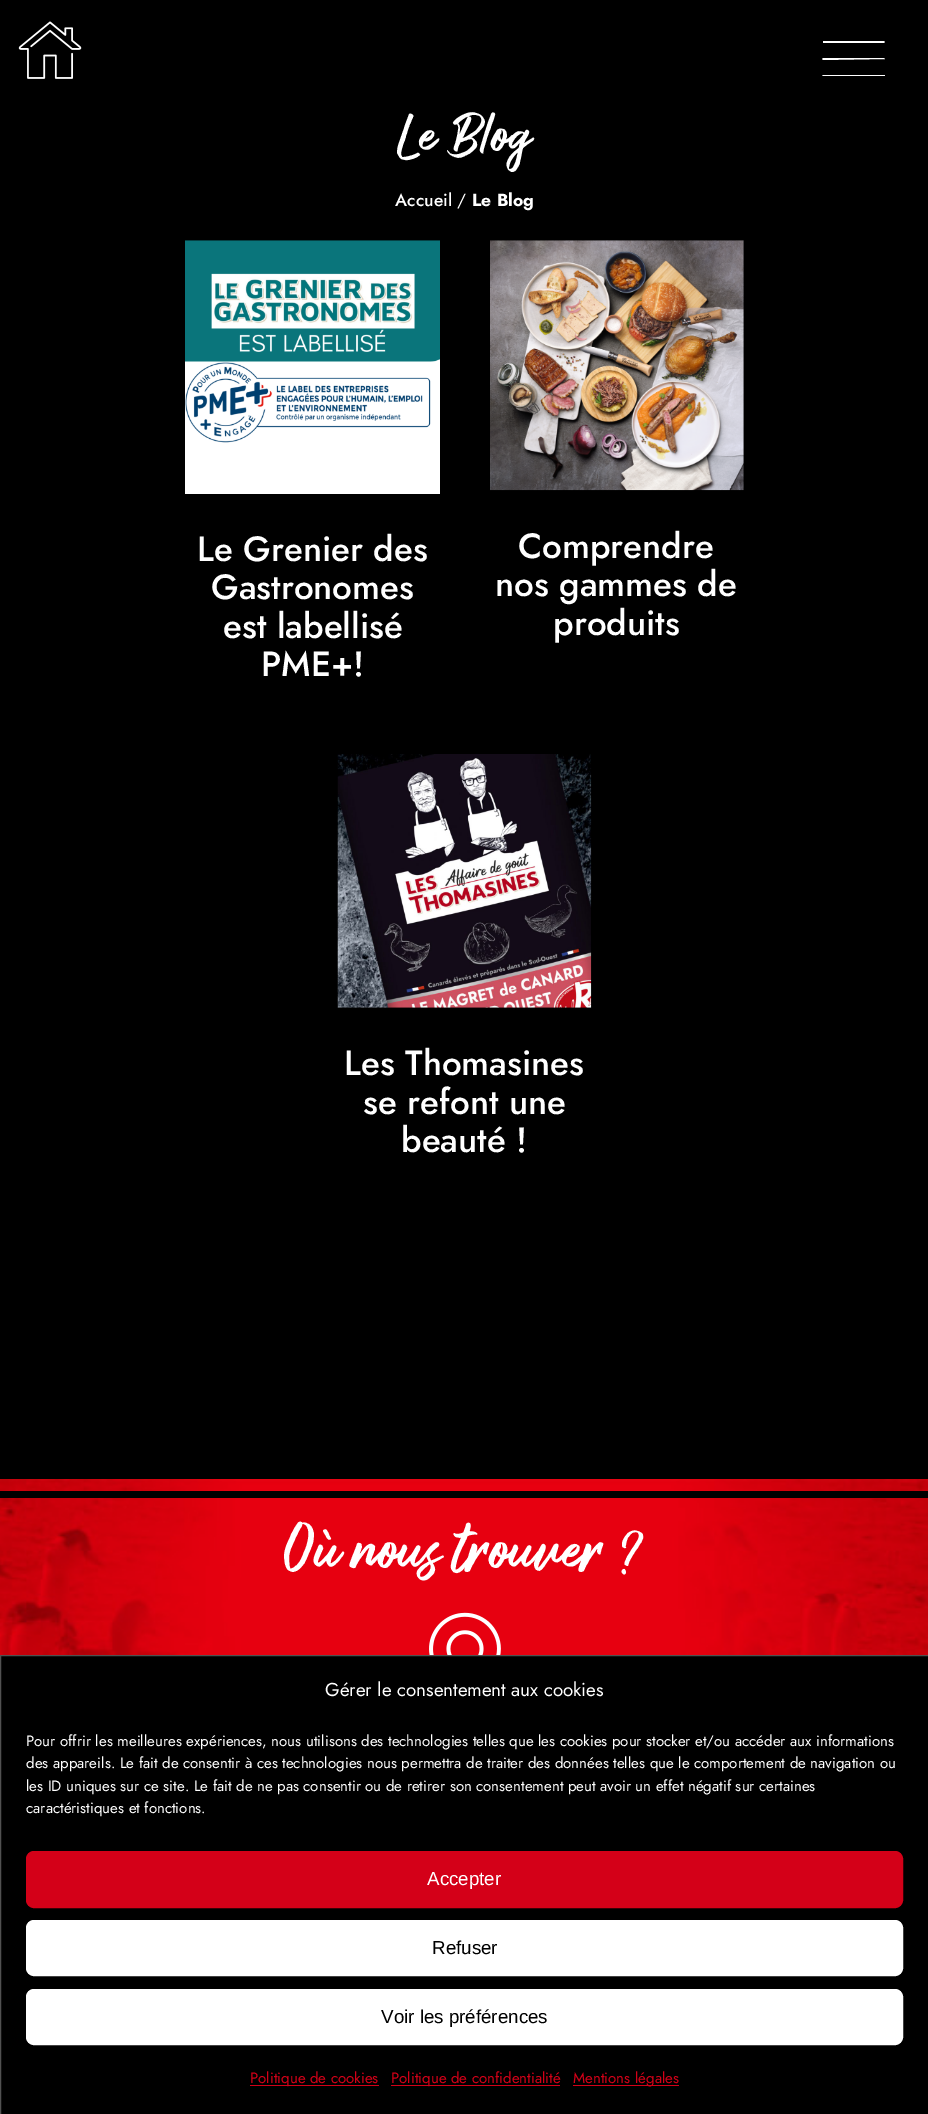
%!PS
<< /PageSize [928 2114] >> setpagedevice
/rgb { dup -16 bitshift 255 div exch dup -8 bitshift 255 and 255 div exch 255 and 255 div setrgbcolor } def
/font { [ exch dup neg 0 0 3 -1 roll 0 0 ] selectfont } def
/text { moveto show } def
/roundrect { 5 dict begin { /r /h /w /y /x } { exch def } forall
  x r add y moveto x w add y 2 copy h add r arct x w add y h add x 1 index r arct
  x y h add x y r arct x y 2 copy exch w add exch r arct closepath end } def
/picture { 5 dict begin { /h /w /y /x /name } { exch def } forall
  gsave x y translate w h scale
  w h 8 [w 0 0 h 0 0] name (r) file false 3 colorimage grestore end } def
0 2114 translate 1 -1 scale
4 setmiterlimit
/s1 { /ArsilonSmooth-Regular 51 font 16#FFFFFF rgb } def
/s2 { /Jost-Medium 17.5 font 16#FFFFFF rgb } def
/s3 { /Jost-Regular 17.5 font 16#FFFFFF rgb } def
/s4 { /Jost-Bold 17.5 font 16#FFFFFF rgb } def
/s5 { /Jost-Medium 35 font 16#FFFFFF rgb } def
/s6 { /ArsilonSmooth-Regular 58.75 font 16#FFFFFF rgb } def
/s7 { /Jost-Regular 18.75 font 16#FFFFFF rgb } def
/s8 { /Jost-Regular 15 font 16#FFFFFF rgb } def
/s9 { /LiberationSans-Regular 18.75 font 16#FFFFFF rgb } def
/s10 { /LiberationSans-Regular 18.75 font 16#000000 rgb } def
/s11 { /Jost-Regular 15 font 16#D40018 rgb } def
16#000000 rgb
0 0 928 2114 rectfill
(pic1.raw) 18 21 64 58 picture
16#FFFFFF rgb
884 43 moveto 823 43 lineto 823 42 lineto 823 41 lineto 884 41 lineto 885 42 lineto closepath 885 59 moveto 884 58 lineto 823 58 lineto 822 59 lineto 823 60 lineto closepath 885 75 moveto 884 75 lineto 823 75 lineto 822 75 lineto 823 76 lineto 885 76 lineto closepath fill
s1
(Le Blog) 397 151 text
s2
(Accueil) 395 206 text
s3
(/) 457 206 text
s4
(Le Blog) 472 206 text
(pic2.raw) 185 240 255 254 picture
s5
(Le Grenier des) 197 561 text
(Gastronomes) 211 599 text
(est labellisé) 223 638 text
(PME+!) 261 676 text
(pic3.raw) 490 240 254 251 picture
(Comprendre) 518 558 text
(nos gammes de) 495 596 text
(produits) 553 635 text
(pic4.raw) 337 754 255 254 picture
(Les Thomasines) 344 1075 text
(se refont une) 363 1114 text
(beauté !) 401 1152 text
(pic5.raw) 0 1479 928 176 picture
16#000000 rgb
0 1491 928 7 rectfill
s6
(Où nous trouver ?) 284 1568 text
(pic6.raw) 429 1612 72 43 picture
16#515151 rgb
0.5 1655.5 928 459 rectstroke
s7
(Gérer le consentement aux cookies) 325 1696 text
s8
(Pour offrir les meilleures expériences, nous utilisons des technologies telles que les cookies pour stocker et/ou accéder aux informations) 26 1746 text
(des appareils. Le fait de consentir à ces technologies nous permettra de traiter des données telles que le comportement de navigation ou) 26 1768 text
(les ID uniques sur ce site. Le fait de ne pas consentir ou de retirer son consentement peut avoir un effet négatif sur certaines) 26 1791 text
(caractéristiques et fonctions.) 26 1813 text
16#D40018 rgb
26.5 1851.5 876 56 7.5 roundrect gsave fill grestore
stroke
s9
(Accepter) 427 1885 text
26.5 1920.5 876 55 7.5 roundrect gsave fill grestore
stroke
s10
(Refuser) 432 1954 text
16#FFFFFF rgb
26.5 1989.5 876 55 7.5 roundrect gsave fill grestore
stroke
s10
(Voir les préférences) 381 2023 text
16#D40018 rgb
250 2085 129 1 rectfill
s11
(Politique de cookies) 250 2083 text
391 2085 169 1 rectfill
(Politique de confidentialité) 391 2083 text
573 2085 106 1 rectfill
(Mentions légales) 573 2083 text
showpage
